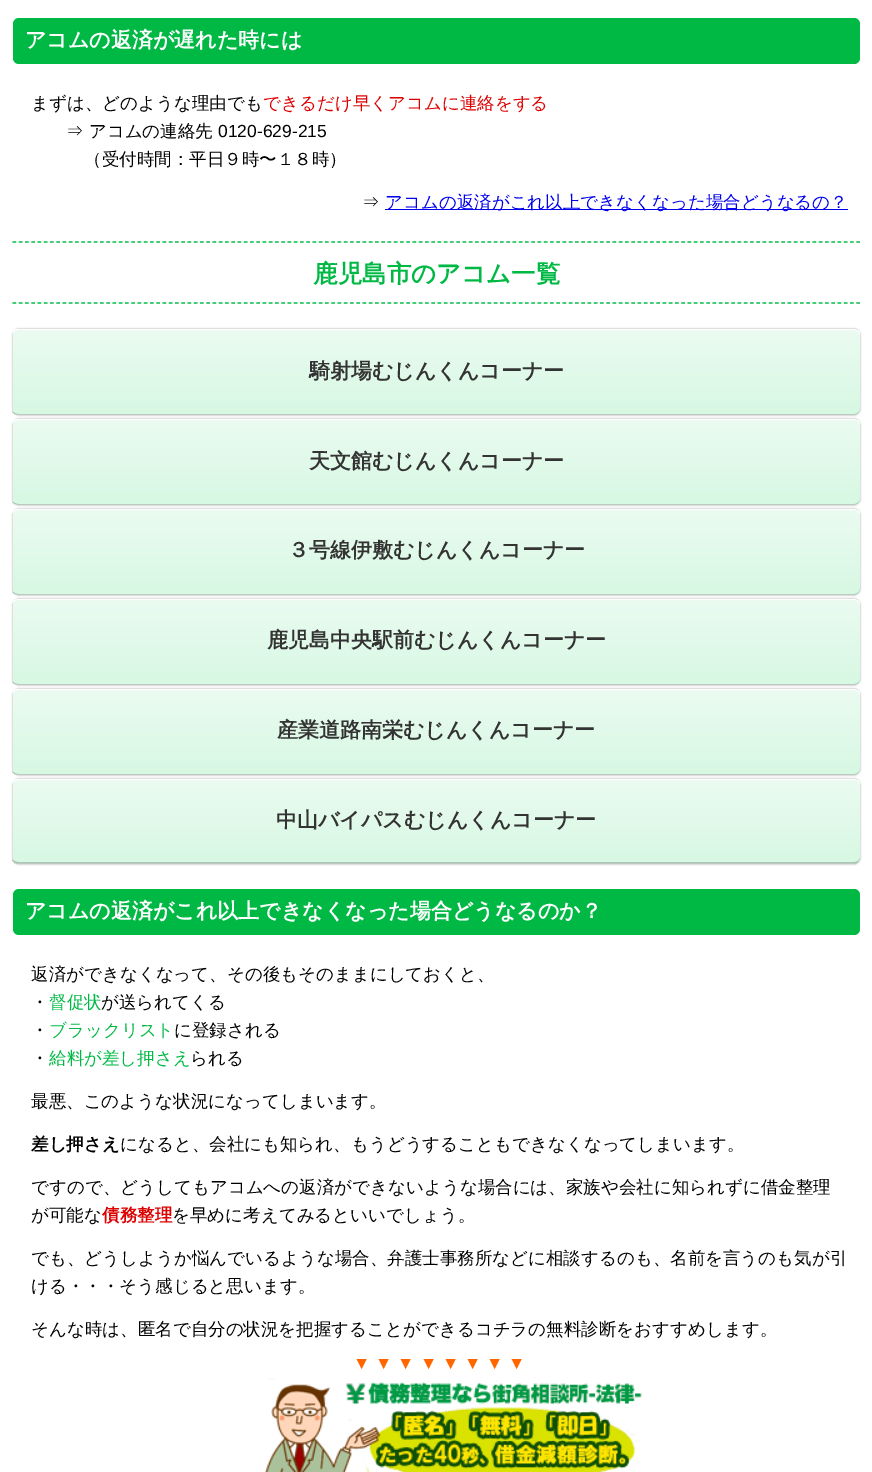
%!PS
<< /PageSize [872 1472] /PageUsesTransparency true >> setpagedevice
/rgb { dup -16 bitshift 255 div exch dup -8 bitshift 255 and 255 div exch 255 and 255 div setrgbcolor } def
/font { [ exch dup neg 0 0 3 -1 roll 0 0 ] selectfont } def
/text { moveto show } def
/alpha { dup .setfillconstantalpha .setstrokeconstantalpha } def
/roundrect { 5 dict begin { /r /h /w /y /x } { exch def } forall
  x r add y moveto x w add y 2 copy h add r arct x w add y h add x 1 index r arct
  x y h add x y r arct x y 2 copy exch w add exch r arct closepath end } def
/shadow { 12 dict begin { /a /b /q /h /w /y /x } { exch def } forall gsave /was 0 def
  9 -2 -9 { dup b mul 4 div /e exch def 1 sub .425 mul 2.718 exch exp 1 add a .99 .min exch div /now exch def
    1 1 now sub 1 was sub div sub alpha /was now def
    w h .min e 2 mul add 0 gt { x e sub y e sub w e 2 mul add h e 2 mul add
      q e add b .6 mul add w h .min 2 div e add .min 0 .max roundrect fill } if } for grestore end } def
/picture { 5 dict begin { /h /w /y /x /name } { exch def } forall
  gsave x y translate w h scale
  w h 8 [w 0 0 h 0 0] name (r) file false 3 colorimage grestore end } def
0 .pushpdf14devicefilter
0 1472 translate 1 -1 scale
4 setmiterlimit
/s1 { /WenQuanYiZenHei-Bold 21 font 16#FFFFFF rgb } def
/s2 { /WenQuanYiZenHei-Medium 17.5 font 16#000000 rgb } def
/s3 { /WenQuanYiZenHei-Medium 17.5 font 16#DD0000 rgb } def
/s4 { /LiberationSans-Regular 17.5 font 16#000000 rgb } def
/s5 { /WenQuanYiZenHei-Medium 17.5 font 16#0000EE rgb } def
/s6 { /WenQuanYiZenHei-Bold 24.5 font 16#00B945 rgb } def
/s7 { /WenQuanYiZenHei-Bold 21 font 16#333333 rgb } def
/s8 { /WenQuanYiZenHei-Medium 17.5 font 16#00B945 rgb } def
/s9 { /WenQuanYiZenHei-Bold 17.5 font 16#000000 rgb } def
/s10 { /WenQuanYiZenHei-Bold 17.5 font 16#DD0000 rgb } def
/s11 { /LiberationSans-Regular 17.5 font 16#FF6600 rgb } def
16#FFFFFF rgb
0 0 872 1472 rectfill
16#00B945 rgb
13 18 847 46 6 roundrect fill
s1
(アコムの返済が遅れた時には) 25 47 text
s2
(まずは、どのような理由でも) 31 109 text
s3
(できるだけ早くアコムに連絡をする) 263 109 text
s2
(⇒ アコムの連絡先) 66 137 text
s4
(0120-629-215) 218 137 text
s2
(（受付時間：平日９時〜１８時）) 84 165 text
(⇒) 362 208 text
16#0000EE rgb
385 209 463 1 rectfill
(アコムの返済がこれ以上できなくなった場合どうなるの？) 385 208 text
16#00B945 rgb
1.2 setlinewidth
[3.75 2.5] 0 setdash
12.5 242 moveto 860 242 lineto stroke
12.5 303 moveto 860 303 lineto stroke
s6
(鹿児島市のアコム一覧) 313 282 text
16#999999 rgb
13 329 847 86 6 1 1 shadow
gsave
13 329 847 86 6 roundrect clip newpath
gsave 13 330 moveto 860 330 lineto 860 414 lineto 13 414 lineto closepath clip newpath
<< /ShadingType 2 /ColorSpace /DeviceRGB /Coords [436 330 436 414] /Extend [true true] /Function << /FunctionType 2 /Domain [0 1] /C0 [0.922 0.984 0.945] /C1 [0.843 0.973 0.89] /N 1 >> >> shfill grestore
gsave 13 414 moveto 860 414 lineto 860 415 lineto 13 415 lineto closepath clip newpath
<< /ShadingType 2 /ColorSpace /DeviceRGB /Coords [436 414 436 498] /Extend [true true] /Function << /FunctionType 2 /Domain [0 1] /C0 [0.922 0.984 0.945] /C1 [0.843 0.973 0.89] /N 1 >> >> shfill grestore
grestore
16#FFFFFF rgb
19 329 moveto 854 329 lineto 857 329 860 332 860 335 curveto 860 332 857 330 854 330 curveto 19 330 lineto 16 330 14 331 12 333 curveto 12 330 17 329 19 329 curveto closepath fill
0.2 alpha
16#000000 rgb
854 415 moveto 857 415 860 412 860 409 curveto 860 412 857 414 854 414 curveto 19 414 lineto 16 414 14 413 12 411 curveto 12 414 17 415 19 415 curveto closepath fill
1 alpha
s7
(騎射場むじんくんコーナー) 309 378 text
16#999999 rgb
13 419 847 86 6 1 1 shadow
gsave
13 419 847 86 6 roundrect clip newpath
gsave 13 420 moveto 860 420 lineto 860 504 lineto 13 504 lineto closepath clip newpath
<< /ShadingType 2 /ColorSpace /DeviceRGB /Coords [436 420 436 504] /Extend [true true] /Function << /FunctionType 2 /Domain [0 1] /C0 [0.922 0.984 0.945] /C1 [0.843 0.973 0.89] /N 1 >> >> shfill grestore
gsave 13 504 moveto 860 504 lineto 860 505 lineto 13 505 lineto closepath clip newpath
<< /ShadingType 2 /ColorSpace /DeviceRGB /Coords [436 504 436 588] /Extend [true true] /Function << /FunctionType 2 /Domain [0 1] /C0 [0.922 0.984 0.945] /C1 [0.843 0.973 0.89] /N 1 >> >> shfill grestore
grestore
16#FFFFFF rgb
19 419 moveto 854 419 lineto 857 419 860 422 860 425 curveto 860 422 857 420 854 420 curveto 19 420 lineto 16 420 14 421 12 423 curveto 12 420 17 419 19 419 curveto closepath fill
0.2 alpha
16#000000 rgb
854 505 moveto 857 505 860 502 860 499 curveto 860 502 857 504 854 504 curveto 19 504 lineto 16 504 14 503 12 501 curveto 12 504 17 505 19 505 curveto closepath fill
1 alpha
s7
(天文館むじんくんコーナー) 309 468 text
16#999999 rgb
13 509 847 86 6 1 1 shadow
gsave
13 509 847 86 6 roundrect clip newpath
gsave 13 510 moveto 860 510 lineto 860 594 lineto 13 594 lineto closepath clip newpath
<< /ShadingType 2 /ColorSpace /DeviceRGB /Coords [436 510 436 594] /Extend [true true] /Function << /FunctionType 2 /Domain [0 1] /C0 [0.922 0.984 0.945] /C1 [0.843 0.973 0.89] /N 1 >> >> shfill grestore
gsave 13 594 moveto 860 594 lineto 860 595 lineto 13 595 lineto closepath clip newpath
<< /ShadingType 2 /ColorSpace /DeviceRGB /Coords [436 594 436 678] /Extend [true true] /Function << /FunctionType 2 /Domain [0 1] /C0 [0.922 0.984 0.945] /C1 [0.843 0.973 0.89] /N 1 >> >> shfill grestore
grestore
16#FFFFFF rgb
19 509 moveto 854 509 lineto 857 509 860 512 860 515 curveto 860 512 857 510 854 510 curveto 19 510 lineto 16 510 14 511 12 513 curveto 12 510 17 509 19 509 curveto closepath fill
0.2 alpha
16#000000 rgb
854 595 moveto 857 595 860 592 860 589 curveto 860 592 857 594 854 594 curveto 19 594 lineto 16 594 14 593 12 591 curveto 12 594 17 595 19 595 curveto closepath fill
1 alpha
s7
(３号線伊敷むじんくんコーナー) 288 557 text
16#999999 rgb
13 599 847 86 6 1 1 shadow
gsave
13 599 847 86 6 roundrect clip newpath
gsave 13 600 moveto 860 600 lineto 860 684 lineto 13 684 lineto closepath clip newpath
<< /ShadingType 2 /ColorSpace /DeviceRGB /Coords [436 600 436 684] /Extend [true true] /Function << /FunctionType 2 /Domain [0 1] /C0 [0.922 0.984 0.945] /C1 [0.843 0.973 0.89] /N 1 >> >> shfill grestore
gsave 13 684 moveto 860 684 lineto 860 685 lineto 13 685 lineto closepath clip newpath
<< /ShadingType 2 /ColorSpace /DeviceRGB /Coords [436 684 436 768] /Extend [true true] /Function << /FunctionType 2 /Domain [0 1] /C0 [0.922 0.984 0.945] /C1 [0.843 0.973 0.89] /N 1 >> >> shfill grestore
grestore
16#FFFFFF rgb
19 599 moveto 854 599 lineto 857 599 860 602 860 605 curveto 860 602 857 600 854 600 curveto 19 600 lineto 16 600 14 601 12 603 curveto 12 600 17 599 19 599 curveto closepath fill
0.2 alpha
16#000000 rgb
854 685 moveto 857 685 860 682 860 679 curveto 860 682 857 684 854 684 curveto 19 684 lineto 16 684 14 683 12 681 curveto 12 684 17 685 19 685 curveto closepath fill
1 alpha
s7
(鹿児島中央駅前むじんくんコーナー) 267 647 text
16#999999 rgb
13 689 847 86 6 1 1 shadow
gsave
13 689 847 86 6 roundrect clip newpath
gsave 13 690 moveto 860 690 lineto 860 774 lineto 13 774 lineto closepath clip newpath
<< /ShadingType 2 /ColorSpace /DeviceRGB /Coords [436 690 436 774] /Extend [true true] /Function << /FunctionType 2 /Domain [0 1] /C0 [0.922 0.984 0.945] /C1 [0.843 0.973 0.89] /N 1 >> >> shfill grestore
gsave 13 774 moveto 860 774 lineto 860 775 lineto 13 775 lineto closepath clip newpath
<< /ShadingType 2 /ColorSpace /DeviceRGB /Coords [436 774 436 858] /Extend [true true] /Function << /FunctionType 2 /Domain [0 1] /C0 [0.922 0.984 0.945] /C1 [0.843 0.973 0.89] /N 1 >> >> shfill grestore
grestore
16#FFFFFF rgb
19 689 moveto 854 689 lineto 857 689 860 692 860 695 curveto 860 692 857 690 854 690 curveto 19 690 lineto 16 690 14 691 12 693 curveto 12 690 17 689 19 689 curveto closepath fill
0.2 alpha
16#000000 rgb
854 775 moveto 857 775 860 772 860 769 curveto 860 772 857 774 854 774 curveto 19 774 lineto 16 774 14 773 12 771 curveto 12 774 17 775 19 775 curveto closepath fill
1 alpha
s7
(産業道路南栄むじんくんコーナー) 277 737 text
16#999999 rgb
13 779 847 85 6 1 1 shadow
gsave
13 779 847 85 6 roundrect clip newpath
gsave 13 780 moveto 860 780 lineto 860 863 lineto 13 863 lineto closepath clip newpath
<< /ShadingType 2 /ColorSpace /DeviceRGB /Coords [436 780 436 863] /Extend [true true] /Function << /FunctionType 2 /Domain [0 1] /C0 [0.922 0.984 0.945] /C1 [0.843 0.973 0.89] /N 1 >> >> shfill grestore
gsave 13 863 moveto 860 863 lineto 860 864 lineto 13 864 lineto closepath clip newpath
<< /ShadingType 2 /ColorSpace /DeviceRGB /Coords [436 863 436 945] /Extend [true true] /Function << /FunctionType 2 /Domain [0 1] /C0 [0.922 0.984 0.945] /C1 [0.843 0.973 0.89] /N 1 >> >> shfill grestore
grestore
16#FFFFFF rgb
19 779 moveto 854 779 lineto 857 779 860 782 860 785 curveto 860 782 857 780 854 780 curveto 19 780 lineto 16 780 14 781 12 783 curveto 12 780 17 779 19 779 curveto closepath fill
0.2 alpha
16#000000 rgb
856 864 moveto 858 863 860 860 860 858 curveto 860 860 857 862 854 862 curveto 19 862 lineto 16 862 14 861 12 859 curveto 12 861 15 864 17 864 curveto closepath fill
1 alpha
s7
(中山バイパスむじんくんコーナー) 276 827 text
16#00B945 rgb
13 889 847 46 6 roundrect fill
s1
(アコムの返済がこれ以上できなくなった場合どうなるのか？) 25 918 text
s2
(返済ができなくなって、その後もそのままにしておくと、) 31 980 text
(・) 31 1008 text
s8
(督促状) 49 1008 text
s2
(が送られてくる) 101 1008 text
(・) 31 1036 text
s8
(ブラックリスト) 49 1036 text
s2
(に登録される) 174 1036 text
(・) 31 1064 text
s8
(給料が差し押さえ) 49 1064 text
s2
(られる) 190 1064 text
(最悪、このような状況になってしまいます。) 31 1107 text
s9
(差し押さえ) 31 1150 text
s2
(になると、会社にも知られ、もうどうすることもできなくなってしまいます。) 120 1150 text
(ですので、どうしてもアコムへの返済ができないような場合には、家族や会社に知られずに借金整理) 31 1193 text
(が可能な) 31 1221 text
s10
(債務整理) 102 1221 text
s2
(を早めに考えてみるといいでしょう。) 172 1221 text
(でも、どうしようか悩んでいるような場合、弁護士事務所などに相談するのも、名前を言うのも気が引) 31 1264 text
(ける・・・そう感じると思います。) 31 1292 text
(そんな時は、匿名で自分の状況を把握することができるコチラの無料診断をおすすめします。) 31 1335 text
s11
(▼ ▼ ▼ ▼ ▼ ▼ ▼ ▼) 353 1369 text
(pic1.raw) 264 1378 378 94 picture
.poppdf14devicefilter showpage
